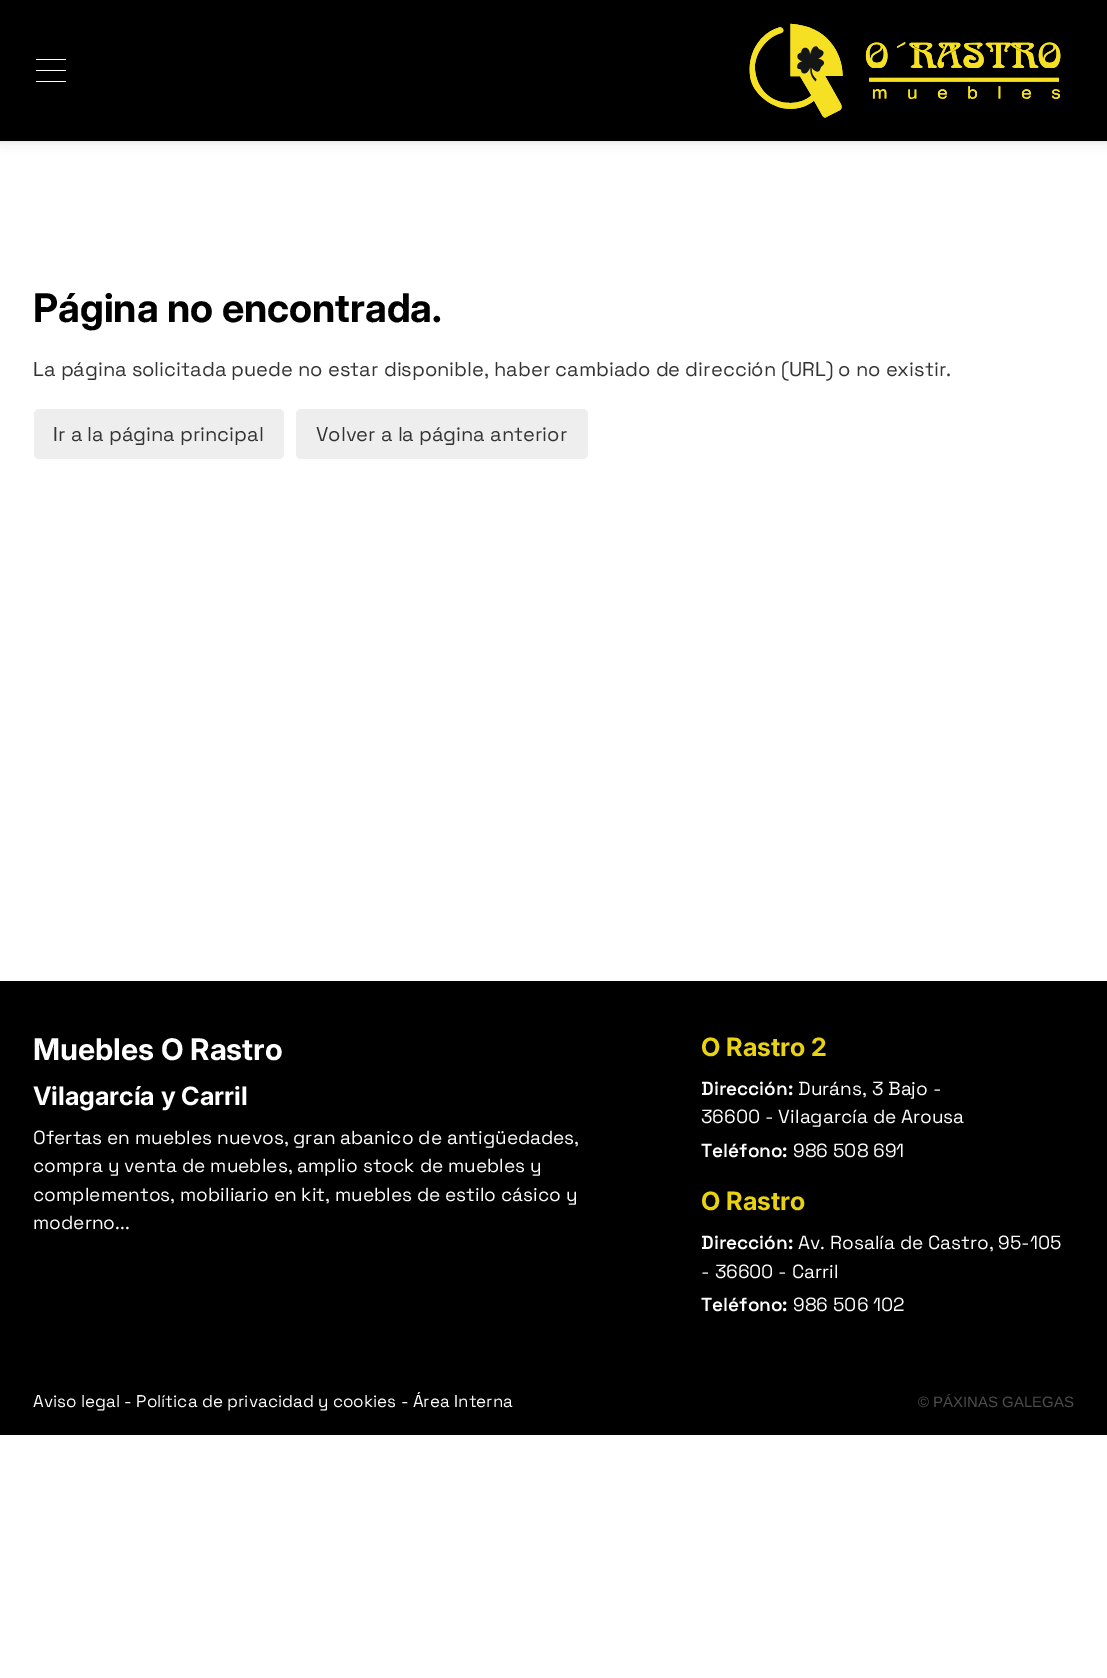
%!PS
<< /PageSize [1107 1678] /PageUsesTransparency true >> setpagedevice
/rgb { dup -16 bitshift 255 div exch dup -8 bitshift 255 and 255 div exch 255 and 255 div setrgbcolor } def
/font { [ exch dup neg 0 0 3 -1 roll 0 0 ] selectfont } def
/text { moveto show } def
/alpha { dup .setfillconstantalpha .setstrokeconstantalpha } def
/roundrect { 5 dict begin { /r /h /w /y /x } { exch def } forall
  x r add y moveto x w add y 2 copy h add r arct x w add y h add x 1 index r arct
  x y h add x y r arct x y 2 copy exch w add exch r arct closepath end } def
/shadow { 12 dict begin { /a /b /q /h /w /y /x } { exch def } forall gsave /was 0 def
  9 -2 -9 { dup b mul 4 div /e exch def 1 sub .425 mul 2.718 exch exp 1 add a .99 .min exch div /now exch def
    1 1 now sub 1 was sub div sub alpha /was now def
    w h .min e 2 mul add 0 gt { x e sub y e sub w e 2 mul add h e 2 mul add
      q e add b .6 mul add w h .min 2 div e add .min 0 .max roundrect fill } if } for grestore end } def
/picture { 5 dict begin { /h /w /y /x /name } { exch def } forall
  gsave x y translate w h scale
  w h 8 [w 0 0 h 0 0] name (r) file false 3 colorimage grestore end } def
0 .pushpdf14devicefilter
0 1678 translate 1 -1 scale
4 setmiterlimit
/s1 { /Inter-Bold 39.6 font 16#000000 rgb } def
/s2 { /SpaceGrotesk-Regular 20 font 16#333333 rgb } def
/s3 { /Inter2-Bold 29.75 font 16#FFFFFF rgb } def
/s4 { /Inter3-Bold 25.25 font 16#FFFFFF rgb } def
/s5 { /SpaceGrotesk-Regular 19 font 16#FFFFFF rgb } def
/s6 { /Inter3-Bold 25.25 font 16#E9D210 rgb } def
/s7 { /SpaceGrotesk-SemiBold 19 font 16#FFFFFF rgb } def
/s8 { /SpaceGrotesk-Regular 17 font 16#FFFFFF rgb } def
/s9 { /LiberationSans-Regular 15 font 16#4D4D4D rgb } def
16#FFFFFF rgb
0 0 1107 1678 rectfill
16#F2F2F2 rgb
0 141 1107 1 rectfill
16#000000 rgb
0 -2 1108 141 0 7.5 0.15 shadow
0 0 1107 141 rectfill
16#FFFFFF rgb
36 59 30 1 rectfill
36 70 30 1 rectfill
36 81 30 1 rectfill
(pic1.raw) 749 23 312 95 picture
s1
(Página no encontrada.) 33 322 text
s2
(La página solicitada puede no estar disponible, haber cambiado de dirección \(URL\) o no existir.) 33 376 text
16#EEEEEE rgb
34 409 250 50 5 roundrect fill
s2
(Ir a la página principal) 53 441 text
16#EEEEEE rgb
296 409 292 50 5 roundrect fill
s2
(Volver a la página anterior) 316 441 text
16#000000 rgb
0 981 1107 454 rectfill
s3
(Muebles O Rastro) 33 1060 text
s4
(Vilagarcía y Carril) 33 1105 text
s5
(Ofertas en muebles nuevos, gran abanico de antigüedades,) 33 1144 text
(compra y venta de muebles, amplio stock de muebles y) 33 1172 text
(complementos, mobiliario en kit, muebles de estilo cásico y) 33 1201 text
(moderno...) 33 1229 text
s6
(O Rastro 2) 701 1056 text
s7
(Dirección:) 701 1095 text
s5
(Duráns, 3 Bajo -) 798 1095 text
(36600 - Vilagarcía de Arousa) 701 1123 text
s7
(Teléfono:) 701 1157 text
s5
(986 508 691) 793 1157 text
s6
(O Rastro) 701 1210 text
s7
(Dirección:) 701 1249 text
s5
(Av. Rosalía de Castro, 95-105) 798 1249 text
(- 36600 - Carril) 701 1278 text
s7
(Teléfono:) 701 1311 text
s5
(986 506 102) 793 1311 text
s8
(Aviso legal - Política de privacidad y cookies - Área Interna) 33 1407 text
s9
(© PÁXINAS GALEGAS) 918 1407 text
.poppdf14devicefilter showpage
